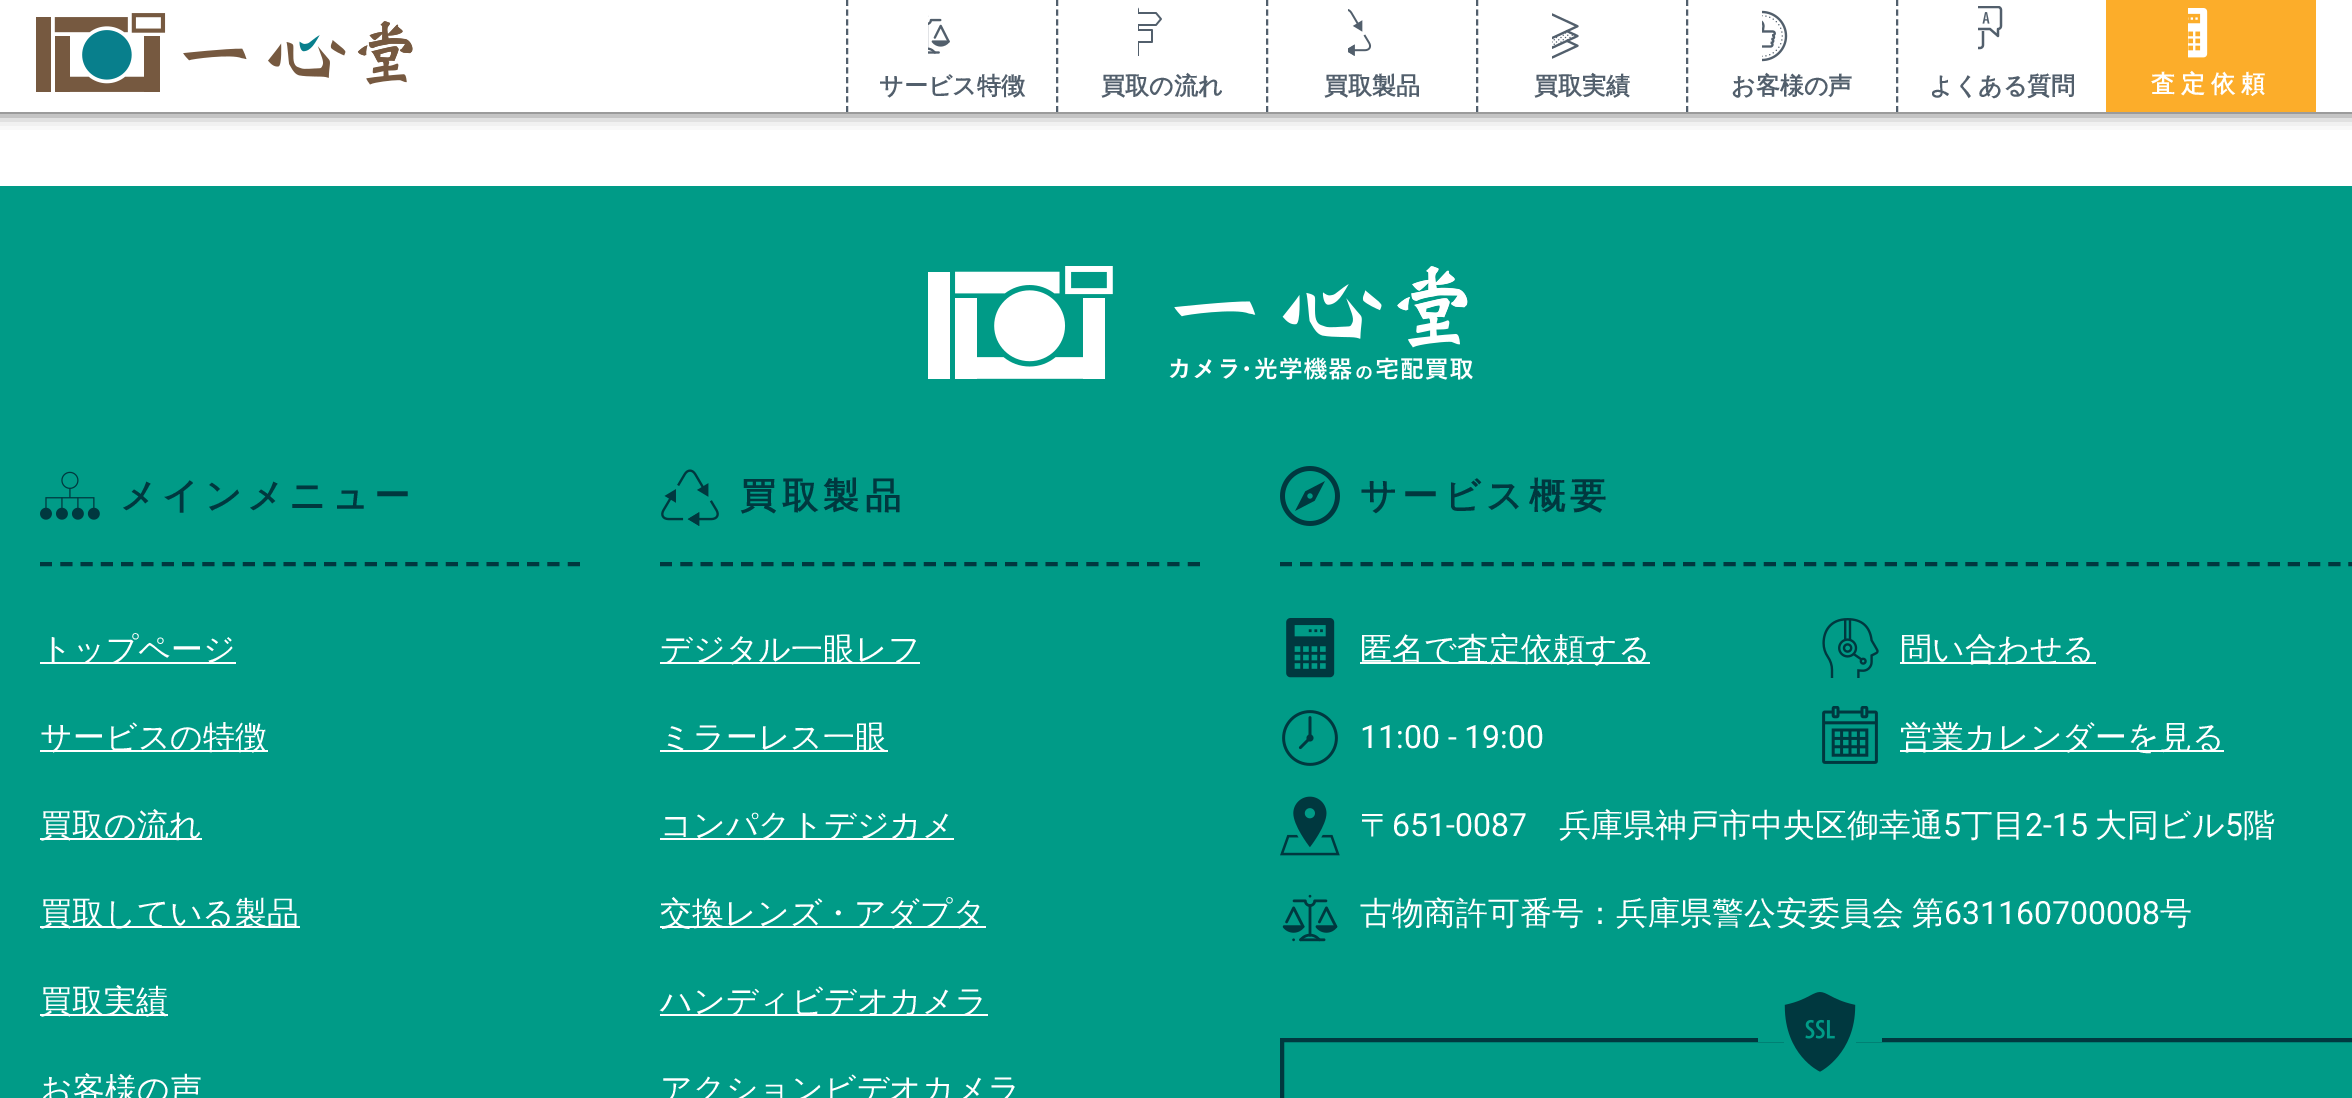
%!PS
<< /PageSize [2352 1098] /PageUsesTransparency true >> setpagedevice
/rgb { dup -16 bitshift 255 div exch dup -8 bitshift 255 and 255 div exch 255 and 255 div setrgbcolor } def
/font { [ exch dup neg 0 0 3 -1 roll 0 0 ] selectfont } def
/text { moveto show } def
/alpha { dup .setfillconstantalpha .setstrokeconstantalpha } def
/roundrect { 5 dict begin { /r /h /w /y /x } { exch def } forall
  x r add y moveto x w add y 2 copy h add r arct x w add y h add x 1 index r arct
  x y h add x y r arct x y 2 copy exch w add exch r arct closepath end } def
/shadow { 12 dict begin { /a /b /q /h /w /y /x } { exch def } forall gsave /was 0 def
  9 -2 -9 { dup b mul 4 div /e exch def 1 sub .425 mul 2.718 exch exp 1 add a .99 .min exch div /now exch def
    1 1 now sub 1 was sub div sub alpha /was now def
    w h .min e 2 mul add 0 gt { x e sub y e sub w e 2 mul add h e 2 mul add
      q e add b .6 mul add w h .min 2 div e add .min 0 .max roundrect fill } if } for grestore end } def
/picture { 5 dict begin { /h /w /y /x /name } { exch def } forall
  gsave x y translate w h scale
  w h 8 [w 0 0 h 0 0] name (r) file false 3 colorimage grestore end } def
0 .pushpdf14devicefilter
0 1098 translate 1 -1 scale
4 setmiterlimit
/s1 { /WenQuanYiZenHei-Bold 24 font 16#525F6C rgb } def
/s2 { /WenQuanYiZenHei-Medium 32 font 16#FFFFFF rgb } def
/s3 { /Roboto-Regular 32 font 16#FFFFFF rgb } def
16#FFFFFF rgb
0 0 2352 1098 rectfill
16#333333 rgb
-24 0 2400 112 0 8 1 shadow
16#FFFFFF rgb
0 0 2352 112 rectfill
(pic1.raw) 36 13 377 79 picture
16#525F6C rgb
2 setlinewidth
[6 3.64] 0 setdash
847 0 moveto 847 112 lineto stroke
(pic2.raw) 928 15 22 39 picture
s1
(サービス特徴) 879 94 text
1057 0 moveto 1057 112 lineto stroke
(pic3.raw) 1138 7 24 49 picture
(買取の流れ) 1101 94 text
1267 0 moveto 1267 112 lineto stroke
(pic4.raw) 1348 9 24 47 picture
(買取製品) 1324 94 text
1477 0 moveto 1477 112 lineto stroke
(pic5.raw) 1552 13 27 46 picture
(買取実績) 1534 94 text
1687 0 moveto 1687 112 lineto stroke
(pic6.raw) 1762 10 26 52 picture
(お客様の声) 1731 94 text
1897 0 moveto 1897 112 lineto stroke
(pic7.raw) 1978 6 25 44 picture
(よくある質問) 1929 94 text
16#FCAD2A rgb
2106 0 210 112 rectfill
(pic8.raw) 2188 8 20 50 picture
16#FFFFFF rgb
2151 92 moveto 6 0 (査定依頼) ashow
16#009B87 rgb
0 186 2352 912 rectfill
(pic9.raw) 928 266 545 114 picture
16#00383F rgb
4 setlinewidth
[12 8.3] 0 setdash
40 564 moveto 580 564 lineto stroke
(pic10.raw) 40 471 60 49 picture
/WenQuanYiZenHei-Bold 36 font
120 508 moveto 5.5 0 (メインメニュー) ashow
16#FFFFFF rgb
40 662 196 2 rectfill
s2
(トップページ) 40 660 text
40 750 228 2 rectfill
(サービスの特徴) 40 748 text
40 838 162 2 rectfill
(買取の流れ) 40 836 text
40 926 260 2 rectfill
(買取している製品) 40 924 text
40 1014 128 2 rectfill
(買取実績) 40 1012 text
(お客様の声) 40 1100 text
16#00383F rgb
660 564 moveto 1200 564 lineto stroke
(pic11.raw) 661 469 58 57 picture
/WenQuanYiZenHei-Bold 36 font
740 508 moveto 5.5 0 (買取製品) ashow
16#FFFFFF rgb
660 662 260 2 rectfill
s2
(デジタル一眼レフ) 660 660 text
660 750 228 2 rectfill
(ミラーレス一眼) 660 748 text
660 838 294 2 rectfill
(コンパクトデジカメ) 660 836 text
660 926 326 2 rectfill
(交換レンズ・アダプタ) 660 924 text
660 1014 328 2 rectfill
(ハンディビデオカメラ) 660 1012 text
(アクションビデオカメラ) 660 1100 text
16#00383F rgb
[12 8.16] 0 setdash
1280 564 moveto 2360 564 lineto stroke
(pic12.raw) 1280 466 60 60 picture
/WenQuanYiZenHei-Bold 36 font
1360 508 moveto 5.5 0 (サービス概要) ashow
(pic13.raw) 1286 618 49 60 picture
16#FFFFFF rgb
1360 662 290 2 rectfill
s2
(匿名で査定依頼する) 1360 660 text
(pic14.raw) 1822 618 57 60 picture
1900 662 196 2 rectfill
(問い合わせる) 1900 660 text
(pic15.raw) 1282 710 56 56 picture
s3
(11:00 - 19:00) 1360 748 text
(pic16.raw) 1822 706 56 58 picture
1900 750 324 2 rectfill
s2
(営業カレンダーを見る) 1900 748 text
(pic17.raw) 1280 796 60 60 picture
(〒) 1360 836 text
s3
(651-0087) 1392 836 text
s2
(兵庫県神戸市中央区御幸通) 1559 836 text
s3
(5) 1943 836 text
s2
(丁目) 1961 836 text
s3
(2-15) 2025 836 text
s2
(大同ビル) 2095 836 text
s3
(5) 2225 836 text
s2
(階) 2243 836 text
(pic18.raw) 1282 894 56 48 picture
1360 924 moveto -2 0 32 (古物商許可番号：兵庫県警公安委員会 第) widthshow
s3
(631160700008) 1944 924 text
s2
(号) 2160 924 text
16#00383F rgb
[] 0 setdash
1282 1040 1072 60 rectstroke
16#009B87 rgb
1758 1038 124 4 rectfill
(pic19.raw) 1784 992 72 80 picture
.poppdf14devicefilter showpage
